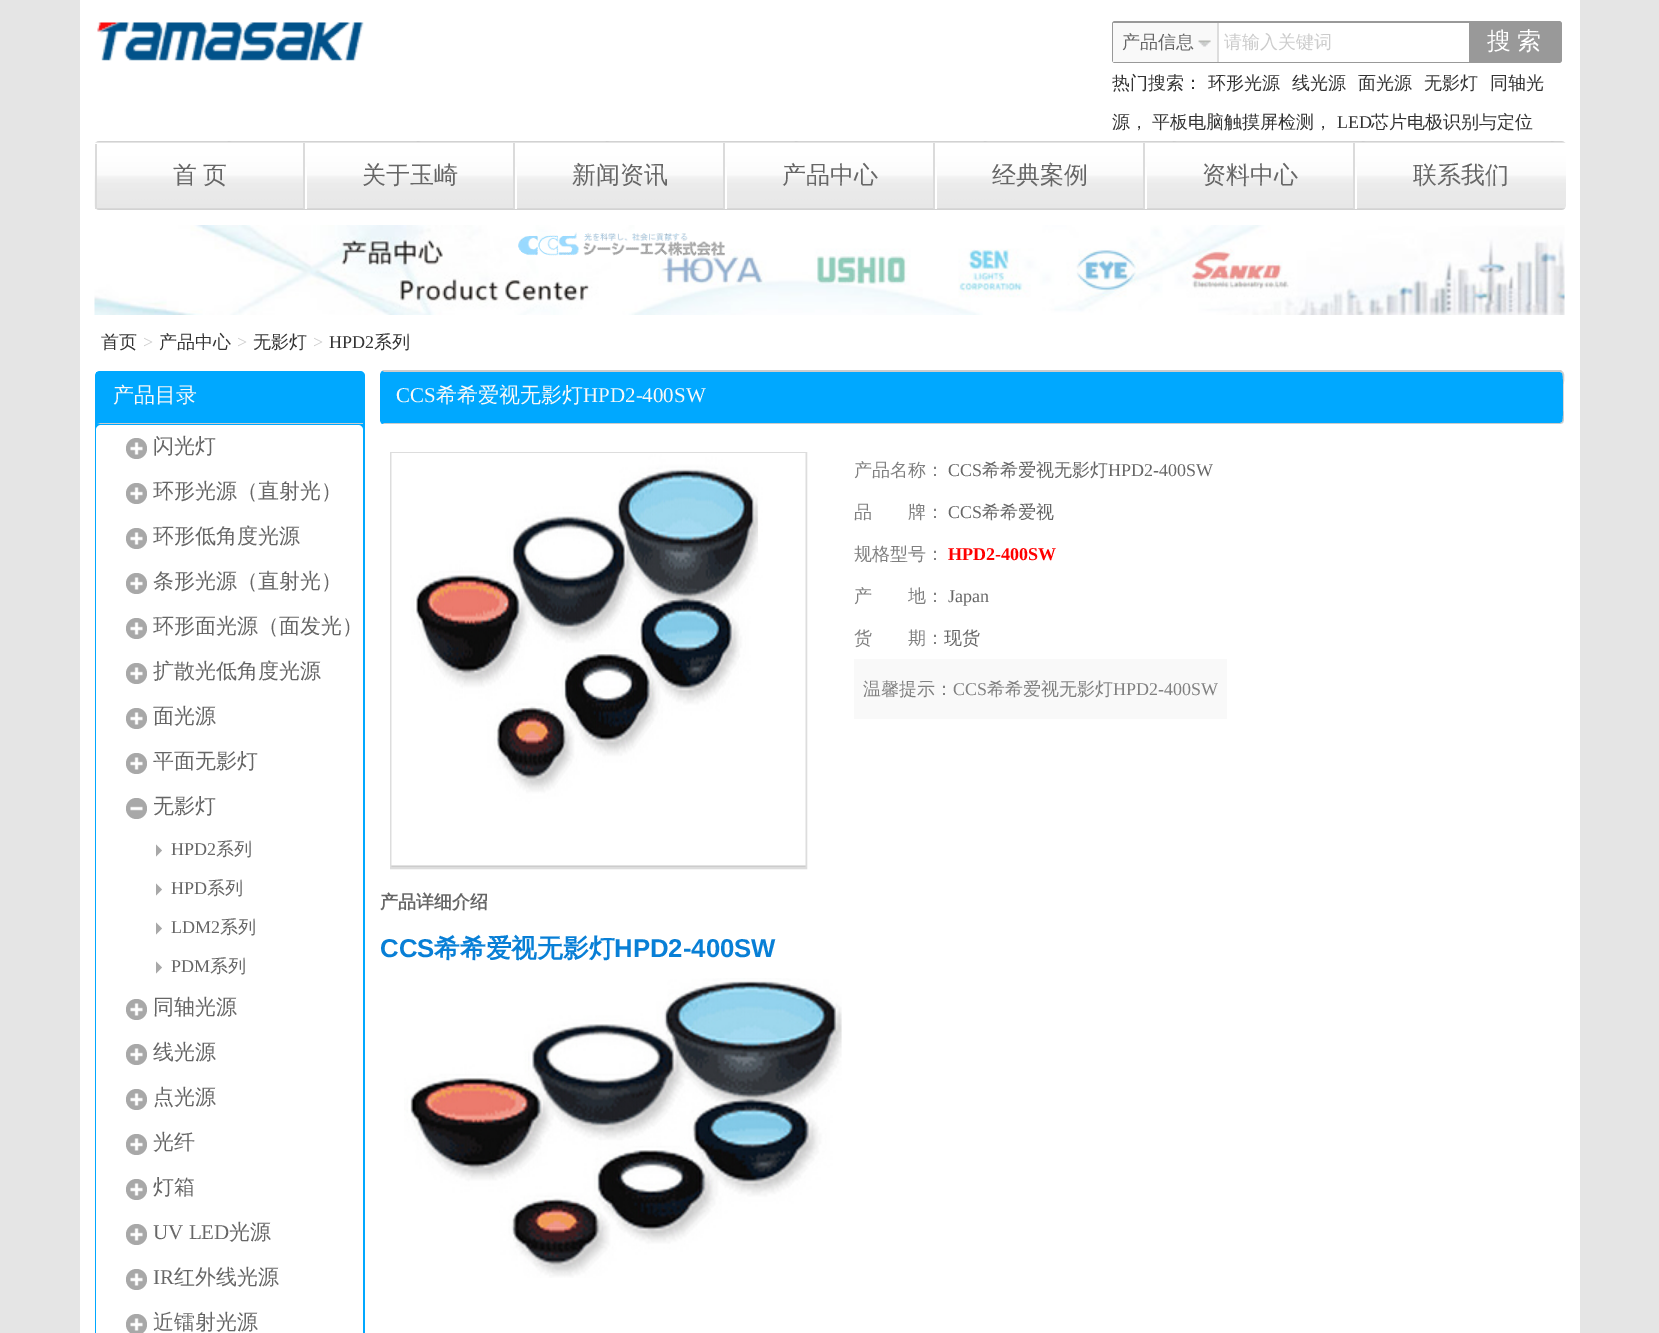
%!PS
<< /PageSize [1659 1333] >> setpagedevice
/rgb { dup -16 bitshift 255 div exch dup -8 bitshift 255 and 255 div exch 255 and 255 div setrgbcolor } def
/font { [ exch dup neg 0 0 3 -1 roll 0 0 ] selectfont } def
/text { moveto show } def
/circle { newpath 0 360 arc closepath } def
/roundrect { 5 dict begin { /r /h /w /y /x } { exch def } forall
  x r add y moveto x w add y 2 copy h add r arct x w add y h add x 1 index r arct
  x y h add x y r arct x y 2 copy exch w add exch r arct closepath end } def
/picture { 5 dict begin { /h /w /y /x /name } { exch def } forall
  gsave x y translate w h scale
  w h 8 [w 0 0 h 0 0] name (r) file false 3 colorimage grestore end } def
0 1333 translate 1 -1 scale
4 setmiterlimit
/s1 { /WenQuanYiZenHei-Medium 18 font 16#666666 rgb } def
/s2 { /WenQuanYiZenHei-Medium 18 font 16#CCCCCC rgb } def
/s3 { /WenQuanYiZenHei-Medium 18 font 16#333333 rgb } def
/s4 { /LiberationSerif-Regular 18 font 16#333333 rgb } def
/s5 { /WenQuanYiZenHei-Medium 24 font 16#666666 rgb } def
/s6 { /LiberationSerif-Regular 18 font 16#CCCCCC rgb } def
/s7 { /WenQuanYiZenHei-Medium 21 font 16#F9F9F9 rgb } def
/s8 { /WenQuanYiZenHei-Medium 21 font 16#666666 rgb } def
/s9 { /LiberationSerif-Regular 18 font 16#666666 rgb } def
/s10 { /LiberationSerif-Regular 21 font 16#666666 rgb } def
/s11 { /LiberationSerif-Regular 21 font 16#F9F9F9 rgb } def
/s12 { /WenQuanYiZenHei-Medium 18 font 16#808080 rgb } def
/s13 { /LiberationSerif-Bold 18 font 16#FF0000 rgb } def
/s14 { /LiberationSerif-Regular 18 font 16#808080 rgb } def
/s15 { /WenQuanYiZenHei-Bold 18 font 16#666666 rgb } def
/s16 { /LiberationSans-Bold 25.75 font 16#087FD6 rgb } def
/s17 { /WenQuanYiZenHei-Bold 25.75 font 16#087FD6 rgb } def
16#E5E5E5 rgb
0 0 1659 1333 rectfill
16#FFFFFF rgb
80 0 1500 1333 rectfill
(pic1.raw) 97 22 267 39 picture
16#999999 rgb
1112 21 450 42 3 roundrect fill
16#F9F9F9 rgb
1113 23 104 39 rectfill
16#DDDDDD rgb
1217 23 2 39 rectfill
s1
(产品信息) 1122 48 text
(pic2.raw) 1198 40 13 7 picture
16#FFFFFF rgb
1219 23 250 39 rectfill
/WenQuanYiZenHei-Medium 24 font
1487 49 moveto -1 0 32 (搜 索) widthshow
s2
(请输入关键词) 1224 48 text
s3
(热门搜索：) 1112 89 text
(环形光源) 1208 89 text
(线光源) 1292 89 text
(面光源) 1358 89 text
(无影灯) 1424 89 text
(同轴光) 1490 89 text
(源，) 1112 128 text
(平板电脑触摸屏检测，) 1152 128 text
s4
(LED) 1337 128 text
s3
(芯片电极识别与定位) 1371 128 text
(pic3.raw) 94 141 1472 69 picture
16#DBDBDB rgb
95 144 2 65 rectfill
/WenQuanYiZenHei-Medium 24 font
16#666666 rgb
173 183 moveto -1 0 32 (首 页) widthshow
16#FFFFFF rgb
305 167 2 42 rectfill
16#DBDBDB rgb
303 143 2 66 rectfill
s5
(关于玉崎) 362 183 text
16#FFFFFF rgb
515 167 2 42 rectfill
16#DBDBDB rgb
513 143 2 66 rectfill
s5
(新闻资讯) 572 183 text
16#FFFFFF rgb
725 167 2 42 rectfill
16#DBDBDB rgb
723 143 2 66 rectfill
s5
(产品中心) 782 183 text
16#FFFFFF rgb
935 167 2 42 rectfill
16#DBDBDB rgb
933 143 2 66 rectfill
s5
(经典案例) 992 183 text
16#FFFFFF rgb
1145 167 2 42 rectfill
16#DBDBDB rgb
1143 143 2 66 rectfill
s5
(资料中心) 1202 183 text
16#FFFFFF rgb
1355 167 2 42 rectfill
16#DBDBDB rgb
1353 143 2 66 rectfill
s5
(联系我们) 1413 183 text
(pic4.raw) 94 225 1471 90 picture
(pic5.raw) 518 232 207 28 picture
s3
(首页) 101 348 text
s6
(>) 143 348 text
s3
(产品中心) 159 348 text
s6
(>) 237 348 text
s3
(无影灯) 253 348 text
s6
(>) 313 348 text
s4
(HPD2) 329 348 text
s3
(系列) 374 348 text
16#00A8FF rgb
95 371 270 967 5 roundrect fill
96 372 1 1 rectfill
16#CCCCCC rgb
363 424 moveto 96 424 lineto 100 423 lineto 363 423 lineto closepath fill
16#00A8FF rgb
96 424 moveto 96 372 lineto 100 372 lineto 100 423 lineto closepath fill
s7
(产品目录) 113 402 text
16#FFFFFF rgb
96 425 267 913 5 roundrect fill
16#A8A8A8 rgb
136.5 448.5 10.5 circle fill
(pic6.raw) 130 442 13 13 picture
s8
(闪光灯) 153 453 text
16#A8A8A8 rgb
136.5 493.5 10.5 circle fill
(pic6.raw) 130 487 13 13 picture
s8
(环形光源（直射光）) 153 498 text
16#A8A8A8 rgb
136.5 538.5 10.5 circle fill
(pic6.raw) 130 532 13 13 picture
s8
(环形低角度光源) 153 543 text
16#A8A8A8 rgb
136.5 583.5 10.5 circle fill
(pic6.raw) 130 577 13 13 picture
s8
(条形光源（直射光）) 153 588 text
16#A8A8A8 rgb
136.5 628.5 10.5 circle fill
(pic6.raw) 130 622 13 13 picture
s8
(环形面光源（面发光）) 153 633 text
16#A8A8A8 rgb
136.5 673.5 10.5 circle fill
(pic6.raw) 130 667 13 13 picture
s8
(扩散光低角度光源) 153 678 text
16#A8A8A8 rgb
136.5 718.5 10.5 circle fill
(pic6.raw) 130 712 13 13 picture
s8
(面光源) 153 723 text
16#A8A8A8 rgb
136.5 763.5 10.5 circle fill
(pic6.raw) 130 757 13 13 picture
s8
(平面无影灯) 153 768 text
16#A8A8A8 rgb
136.5 808.5 10.5 circle fill
(pic7.raw) 130 806 13 5 picture
s8
(无影灯) 153 813 text
16#A8A8A8 rgb
156 856.5 moveto 156 844.5 lineto 162 850.5 lineto closepath fill
s9
(HPD2) 171 855 text
s1
(系列) 216 855 text
16#A8A8A8 rgb
156 895.5 moveto 156 883.5 lineto 162 889.5 lineto closepath fill
s9
(HPD) 171 894 text
s1
(系列) 207 894 text
16#A8A8A8 rgb
156 934.5 moveto 156 922.5 lineto 162 928.5 lineto closepath fill
s9
(LDM2) 171 933 text
s1
(系列) 220 933 text
16#A8A8A8 rgb
156 973.5 moveto 156 961.5 lineto 162 967.5 lineto closepath fill
s9
(PDM) 171 972 text
s1
(系列) 210 972 text
16#A8A8A8 rgb
136.5 1009.5 10.5 circle fill
(pic6.raw) 130 1003 13 13 picture
s8
(同轴光源) 153 1014 text
16#A8A8A8 rgb
136.5 1054.5 10.5 circle fill
(pic6.raw) 130 1048 13 13 picture
s8
(线光源) 153 1059 text
16#A8A8A8 rgb
136.5 1099.5 10.5 circle fill
(pic6.raw) 130 1093 13 13 picture
s8
(点光源) 153 1104 text
16#A8A8A8 rgb
136.5 1144.5 10.5 circle fill
(pic6.raw) 130 1138 13 13 picture
s8
(光纤) 153 1149 text
16#A8A8A8 rgb
136.5 1189.5 10.5 circle fill
(pic6.raw) 130 1183 13 13 picture
s8
(灯箱) 153 1194 text
16#A8A8A8 rgb
136.5 1234.5 10.5 circle fill
(pic6.raw) 130 1228 13 13 picture
s10
(UV LED) 153 1239 text
s8
(光源) 229 1239 text
16#A8A8A8 rgb
136.5 1279.5 10.5 circle fill
(pic6.raw) 130 1273 13 13 picture
s10
(IR) 153 1284 text
s8
(红外线光源) 174 1284 text
16#A8A8A8 rgb
136.5 1324.5 10.5 circle fill
(pic6.raw) 130 1318 13 13 picture
s8
(近镭射光源) 153 1329 text
16#00A8FF rgb
384 372 moveto 1560 372 lineto 1562 372 1563 373 1563 375 curveto 1563 420 lineto 1563 422 1562 423 1560 423 curveto 384 423 lineto closepath fill
16#CCCCCC rgb
384 372 moveto 382 371 lineto 383 370 lineto 1561 370 lineto 1563 372 lineto 1562 373 lineto 1560 372 lineto closepath fill
1563 372 moveto 1565 375 1564 379 1564 382 curveto 1564 420 lineto 1563 423 lineto 1562 422 lineto 1564 421 1564 374 1562 373 curveto closepath fill
1563 423 moveto 1560 424 lineto 384 424 lineto 382 424 lineto 384 423 lineto 1560 423 lineto 1562 422 lineto closepath fill
16#00A8FF rgb
384 372 moveto 384 423 lineto 382 424 lineto 381 423 380 421 380 420 curveto 380 375 lineto 380 374 381 372 382 371 curveto closepath fill
s11
(CCS) 396 402 text
s7
(希希爱视无影灯) 436 402 text
s11
(HPD2-400SW) 583 402 text
16#DDDDDD rgb
2 setlinewidth
391 453 415 415 rectstroke
(pic8.raw) 391 453 415 414 picture
s12
(产品名称：) 854 476 text
s9
(CCS) 948 476 text
s1
(希希爱视无影灯) 982 476 text
s9
(HPD2-400SW) 1108 476 text
s12
(品　　牌：) 854 518 text
s9
(CCS) 948 518 text
s1
(希希爱视) 982 518 text
s12
(规格型号：) 854 560 text
s13
(HPD2-400SW) 948 560 text
s12
(产　　地：) 854 602 text
s9
(Japan) 948 602 text
s12
(货　　期：) 854 644 text
s1
(现货) 944 644 text
16#F9F9F9 rgb
854 659 373 60 rectfill
s12
(温馨提示：) 863 695 text
s14
(CCS) 953 695 text
s12
(希希爱视无影灯) 987 695 text
s14
(HPD2-400SW) 1113 695 text
s15
(产品详细介绍) 380 908 text
s16
(CCS) 380 957 text
s17
(希希爱视无影灯) 434 957 text
s16
(HPD2-400SW) 614 957 text
(pic9.raw) 404 978 438 300 picture
showpage
